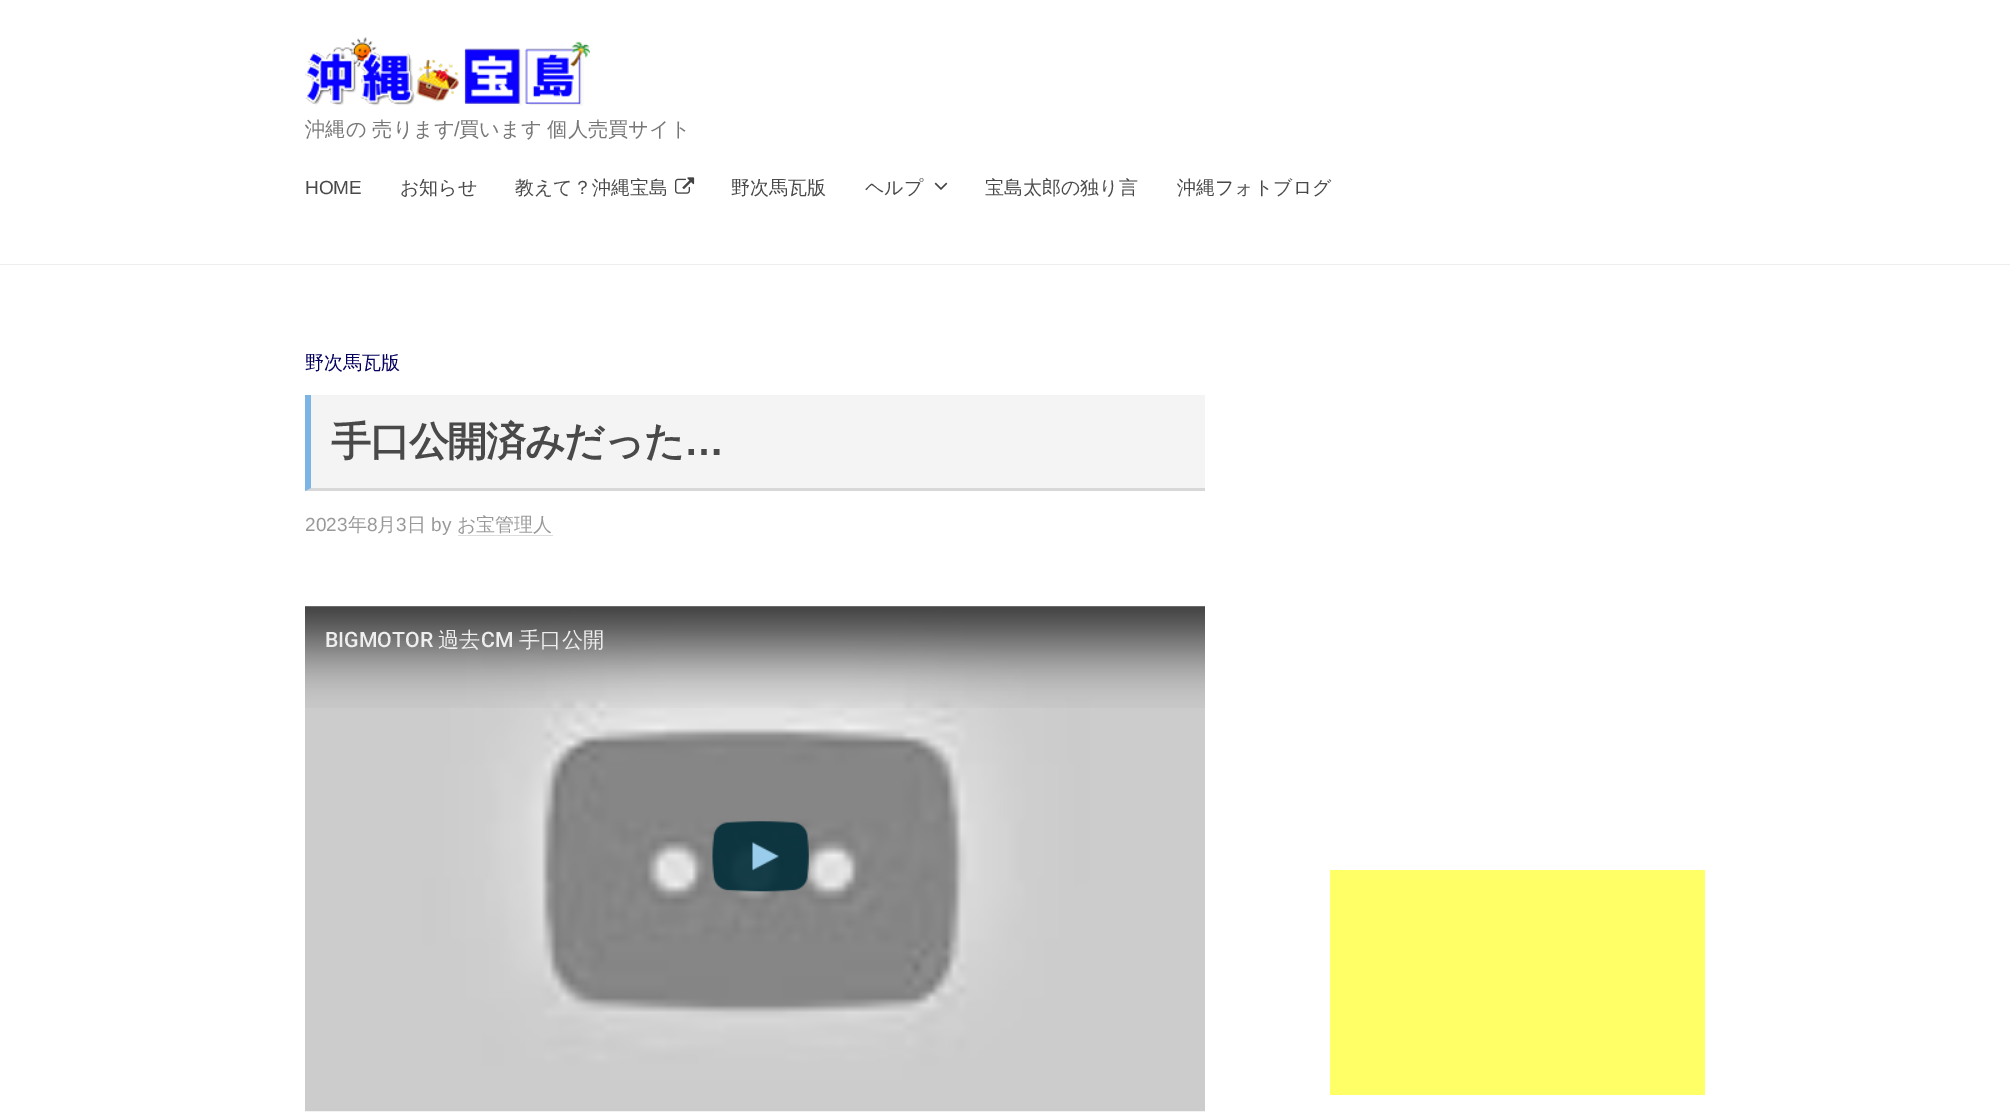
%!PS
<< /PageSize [2010 1113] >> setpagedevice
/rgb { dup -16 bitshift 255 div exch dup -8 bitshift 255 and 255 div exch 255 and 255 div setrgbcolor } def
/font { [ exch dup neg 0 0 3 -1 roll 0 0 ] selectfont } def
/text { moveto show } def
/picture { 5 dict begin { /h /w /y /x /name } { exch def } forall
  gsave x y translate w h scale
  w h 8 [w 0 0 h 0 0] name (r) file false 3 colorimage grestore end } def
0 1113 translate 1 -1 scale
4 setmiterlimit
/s1 { /WenQuanYiZenHei-Medium 20.25 font 16#777777 rgb } def
/s2 { /LiberationSans-Regular 20.25 font 16#777777 rgb } def
/s3 { /LiberationSans-Regular 19 font 16#494949 rgb } def
/s4 { /WenQuanYiZenHei-Medium 19 font 16#494949 rgb } def
/s5 { /WenQuanYiZenHei-Medium 19 font 16#04005E rgb } def
/s6 { /LiberationSans-Regular 19 font 16#999999 rgb } def
/s7 { /WenQuanYiZenHei-Medium 19 font 16#999999 rgb } def
/s8 { /Roboto-Medium 21.25 font 16#EEEEEE rgb } def
/s9 { /WenQuanYiZenHei-Medium 21.25 font 16#EEEEEE rgb } def
16#FFFFFF rgb
0 0 2010 1113 rectfill
16#EEEEEE rgb
0 264 2010 1 rectfill
(pic1.raw) 305 37 285 69 picture
s1
(沖縄の 売ります) 305 136 text
s2
(/) 454 136 text
s1
(買います 個人売買サイト) 459 136 text
s3
(HOME) 305 194 text
s4
(お知らせ) 400 194 text
(教えて？沖縄宝島) 515 194 text
(pic2.raw) 675 177 20 17 picture
(野次馬瓦版) 731 194 text
(ヘルプ) 865 194 text
(pic3.raw) 934 182 14 8 picture
(宝島太郎の独り言) 985 194 text
(沖縄フォトブログ) 1177 194 text
s5
(野次馬瓦版) 305 369 text
16#F4F4F4 rgb
305 395 900 96 rectfill
16#D7D7D7 rgb
1205 491 moveto 305 491 lineto 311 488 lineto 1205 488 lineto closepath fill
16#7DB4E6 rgb
305 491 moveto 305 395 lineto 311 395 lineto 311 488 lineto closepath fill
/WenQuanYiZenHei-Bold 40 font
16#494949 rgb
331 455 moveto -1.25 0 (手口公開済みだった) ashow
/LiberationSans-Bold 40 font
684 455 moveto -1.25 0 (…) ashow
s6
(2023) 305 531 text
s7
(年) 348 531 text
s6
(8) 367 531 text
s7
(月) 377 531 text
s6
(3) 396 531 text
s7
(日) 407 531 text
s6
(by) 431 531 text
s7
(お宝管理人) 457 531 text
16#DDDDDD rgb
458 535 95 1 rectfill
(pic4.raw) 305 606 900 506 picture
(pic5.raw) 305 606 900 102 picture
s8
(BIGMOTOR) 325 647 text
s9
(過去) 438 647 text
s8
(CM) 481 647 text
s9
(手口公開) 519 647 text
(pic6.raw) 712 821 97 71 picture
16#FFFF66 rgb
1330 870 375 225 rectfill
showpage
